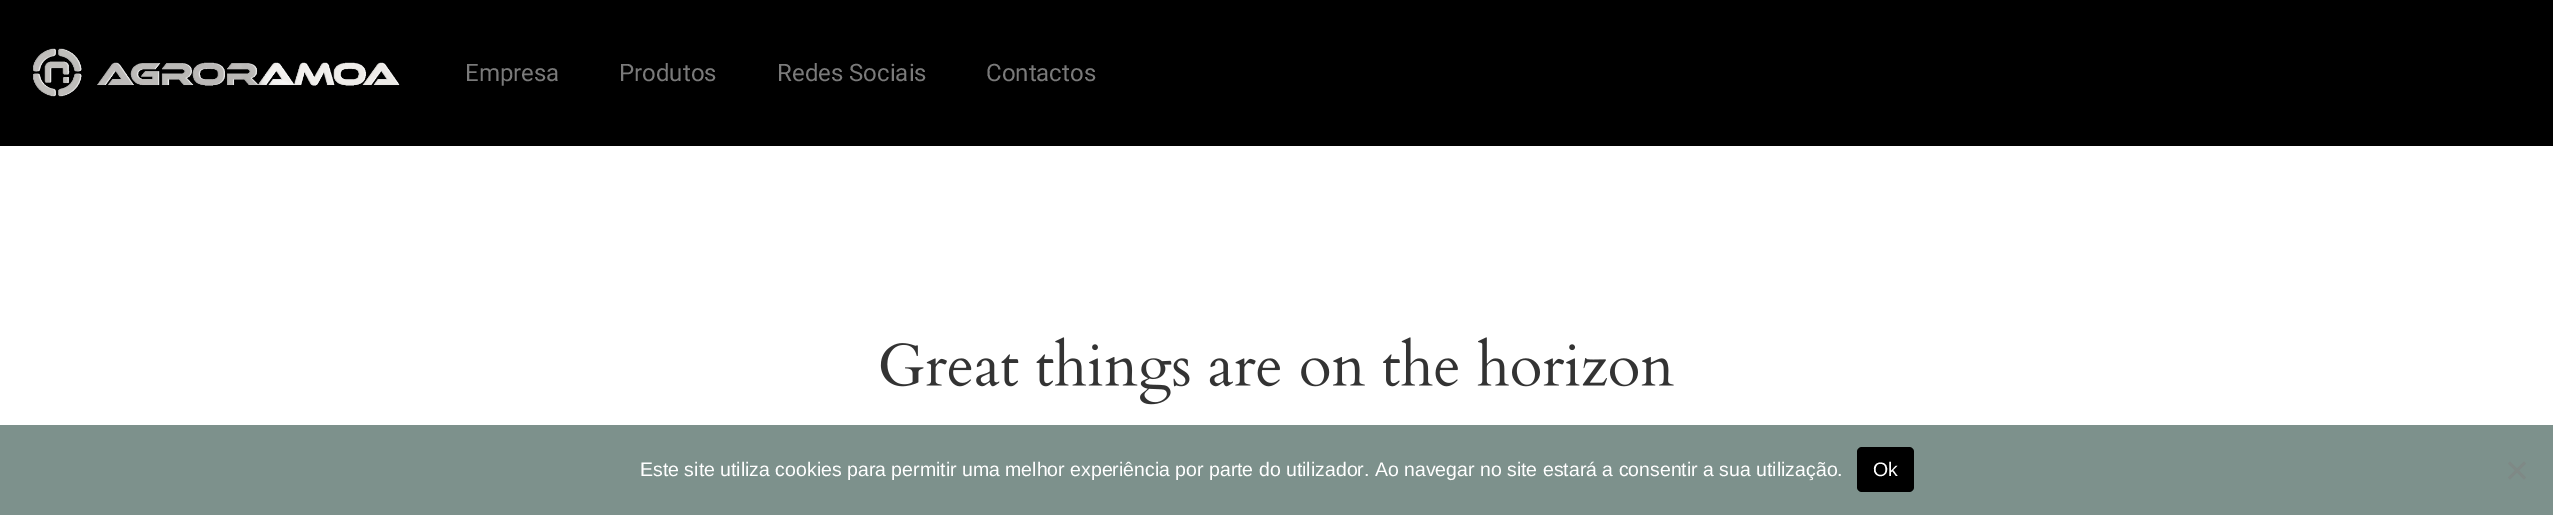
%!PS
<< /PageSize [2553 515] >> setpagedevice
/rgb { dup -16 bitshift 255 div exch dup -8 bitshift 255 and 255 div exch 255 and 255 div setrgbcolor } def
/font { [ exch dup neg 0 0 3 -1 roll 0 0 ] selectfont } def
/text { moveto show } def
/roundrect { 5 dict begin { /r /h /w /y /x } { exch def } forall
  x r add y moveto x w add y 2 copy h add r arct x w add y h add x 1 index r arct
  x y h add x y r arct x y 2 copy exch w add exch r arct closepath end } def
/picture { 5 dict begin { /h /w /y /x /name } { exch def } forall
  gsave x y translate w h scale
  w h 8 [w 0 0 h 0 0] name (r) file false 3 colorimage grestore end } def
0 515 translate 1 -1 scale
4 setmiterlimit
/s1 { /Roboto-Regular 24 font 16#7A7A7A rgb } def
/s2 { /LiberationSans-Regular 19.5 font 16#FFFFFF rgb } def
16#FFFFFF rgb
0 0 2553 515 rectfill
16#000000 rgb
0 0 2553 146 rectfill
(pic1.raw) 33 48 367 49 picture
s1
(Empresa) 465 81 text
(Produtos) 619 81 text
(Redes Sociais) 777 81 text
(Contactos) 986 81 text
(pic2.raw) 880 337 794 68 picture
16#7D918C rgb
0 425 2553 90 rectfill
s2
(Este site utiliza cookies para permitir uma melhor experiência por parte do utilizador. Ao navegar no site estará a consentir a sua utilização.) 640 476 text
16#000000 rgb
1857 447 57 45 5 roundrect fill
s2
(Ok) 1873 476 text
16#7F8986 rgb
2524 461.5 moveto 2526 463.5 lineto 2510 479.5 lineto 2508 477.5 lineto closepath fill
2508 463.5 moveto 2510 461.5 lineto 2526 477.5 lineto 2524 479.5 lineto closepath fill
showpage
